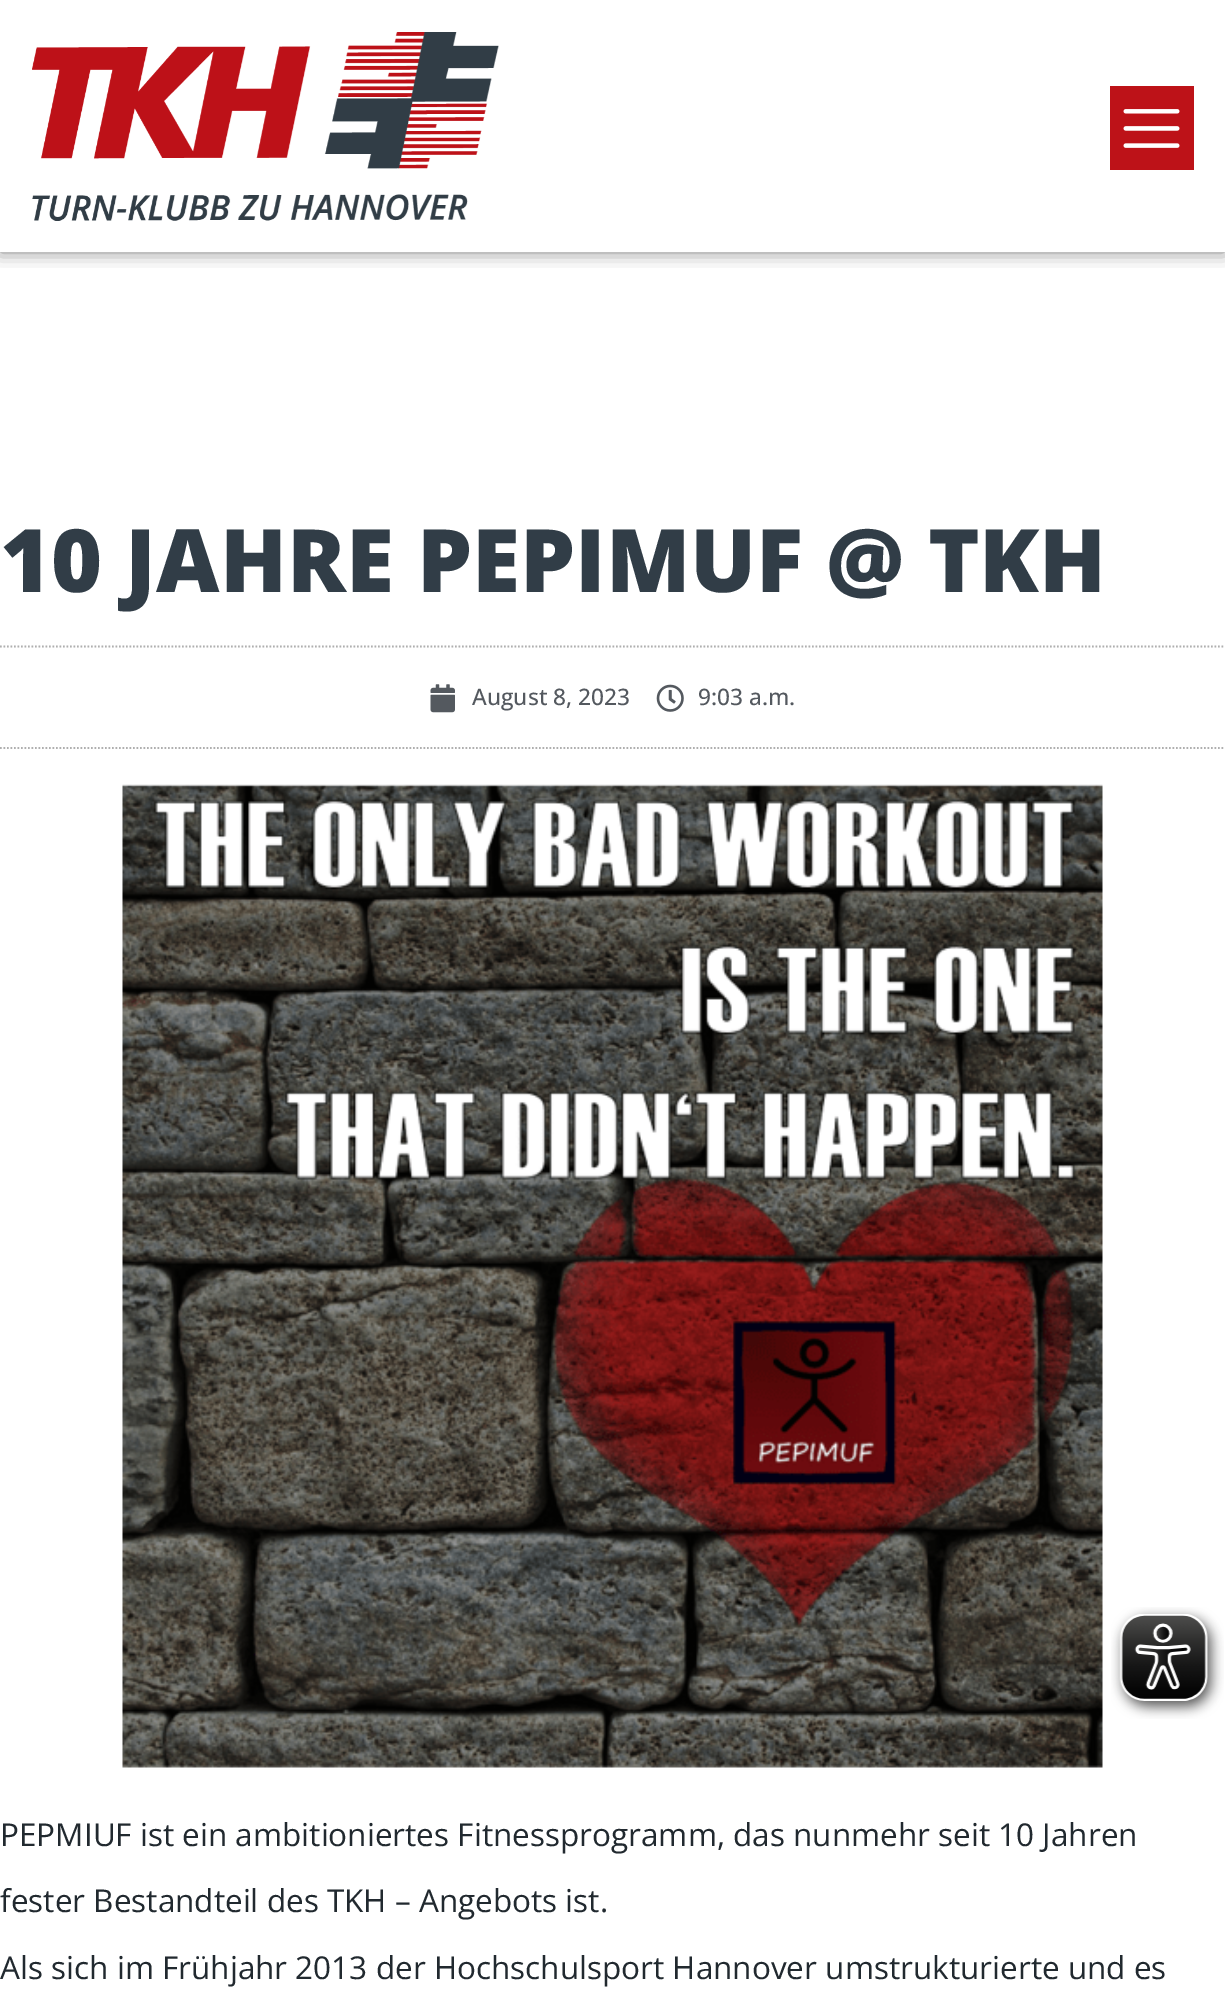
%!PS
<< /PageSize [1225 1999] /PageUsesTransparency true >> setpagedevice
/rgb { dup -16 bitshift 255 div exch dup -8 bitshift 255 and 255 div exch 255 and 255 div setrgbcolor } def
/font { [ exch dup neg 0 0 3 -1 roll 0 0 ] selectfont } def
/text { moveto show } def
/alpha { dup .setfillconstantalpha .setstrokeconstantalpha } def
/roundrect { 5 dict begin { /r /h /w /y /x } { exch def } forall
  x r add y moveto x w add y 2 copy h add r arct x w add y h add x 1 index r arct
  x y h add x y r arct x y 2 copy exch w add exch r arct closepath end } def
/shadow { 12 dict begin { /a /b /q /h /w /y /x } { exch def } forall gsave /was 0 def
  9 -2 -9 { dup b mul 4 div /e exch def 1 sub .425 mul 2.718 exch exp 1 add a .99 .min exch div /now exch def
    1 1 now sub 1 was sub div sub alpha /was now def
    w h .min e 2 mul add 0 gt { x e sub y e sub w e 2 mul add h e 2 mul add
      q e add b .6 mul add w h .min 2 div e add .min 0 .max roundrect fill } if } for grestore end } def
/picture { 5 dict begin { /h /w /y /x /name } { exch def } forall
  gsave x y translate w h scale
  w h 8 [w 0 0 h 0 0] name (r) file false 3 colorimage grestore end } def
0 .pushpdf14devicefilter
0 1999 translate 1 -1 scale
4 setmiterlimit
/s1 { /OpenSans-ExtraBold 87.5 font 16#313D47 rgb } def
/s2 { /OpenSans-Medium 22.75 font 16#54595F rgb } def
/s3 { /OpenSans-Regular 31.5 font 16#21292F rgb } def
16#FFFFFF rgb
0 0 1225 1999 rectfill
gsave
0 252 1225 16 rectclip
16#000000 rgb
0 0 1225 252 0 9 0.5 shadow
grestore
(pic1.raw) 32 32 467 189 picture
16#BD1218 rgb
1110 86 84 84 rectfill
(pic2.raw) 1123 109 57 39 picture
s1
(10 JAHRE PEPIMUF @ TKH) 0 592 text
16#AFAFAF rgb
1.8 setlinewidth
[1.75 1.75] 0 setdash
0 646.5 moveto 1225 646.5 lineto stroke
0 748 moveto 1225 748 lineto stroke
(pic3.raw) 430 684 25 29 picture
s2
(August 8, 2023) 472 705 text
(pic4.raw) 656 684 28 28 picture
(9:03 a.m.) 698 705 text
(pic5.raw) 122 784 981 984 picture
s3
(PEPMIUF ist ein ambitioniertes Fitnessprogramm, das nunmehr seit 10 Jahren) 0 1846 text
(fester Bestandteil des TKH – Angebots ist.) 0 1912 text
(Als sich im Frühjahr 2013 der Hochschulsport Hannover umstrukturierte und es) 0 1979 text
(pic6.raw) 1111 1607 113 112 picture
.poppdf14devicefilter showpage
